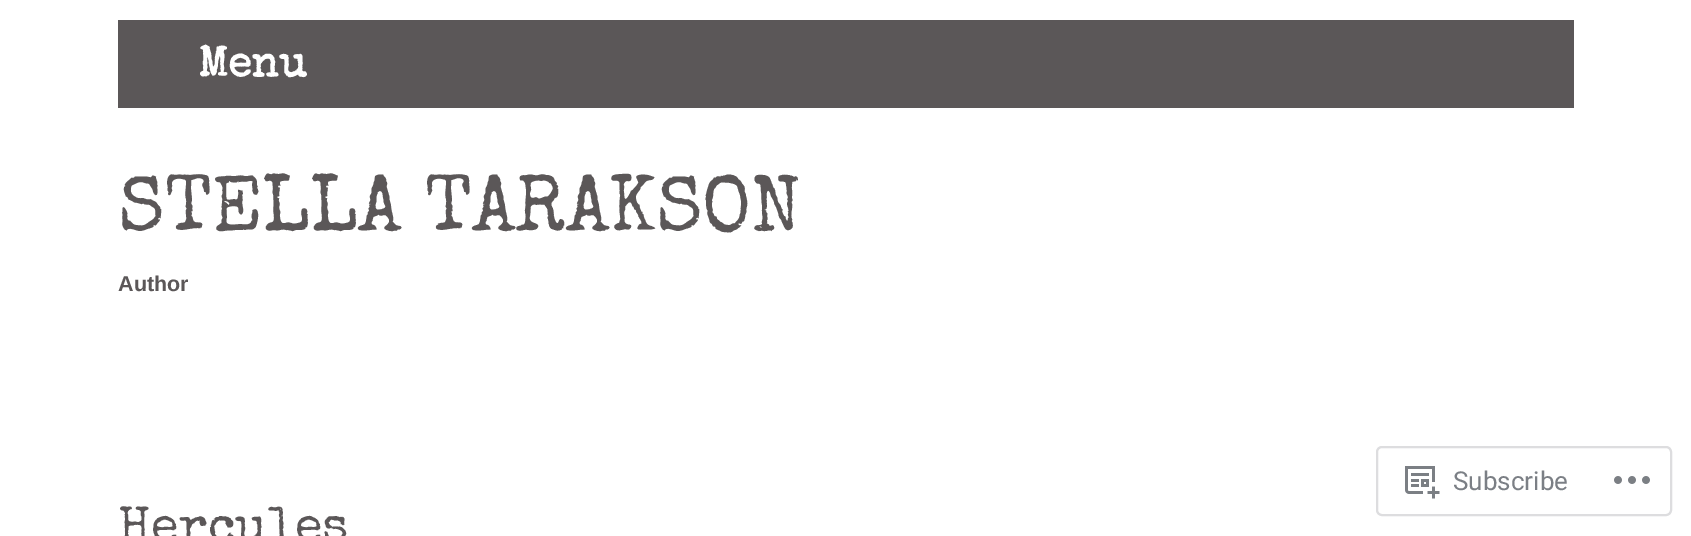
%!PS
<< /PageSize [1691 536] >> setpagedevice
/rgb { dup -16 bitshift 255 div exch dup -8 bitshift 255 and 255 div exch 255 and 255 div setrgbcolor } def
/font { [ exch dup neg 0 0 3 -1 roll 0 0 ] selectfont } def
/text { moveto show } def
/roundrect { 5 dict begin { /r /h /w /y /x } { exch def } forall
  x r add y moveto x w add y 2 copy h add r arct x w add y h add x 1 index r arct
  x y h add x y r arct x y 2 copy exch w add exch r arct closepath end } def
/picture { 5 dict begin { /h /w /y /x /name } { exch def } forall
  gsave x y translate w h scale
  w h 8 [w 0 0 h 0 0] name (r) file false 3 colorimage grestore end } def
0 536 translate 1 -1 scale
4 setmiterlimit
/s1 { /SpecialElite-Bold 43 font 16#FFFFFF rgb } def
/s2 { /SpecialElite-Regular 79.25 font 16#5B5758 rgb } def
/s3 { /LiberationSans-Bold 21.5 font 16#5B5758 rgb } def
/s4 { /Roboto-Regular 26 font 16#7B7F85 rgb } def
/s5 { /SpecialElite-Regular 50.5 font 16#5B5758 rgb } def
16#FFFFFF rgb
0 0 1691 536 rectfill
16#5B5758 rgb
118 20 1456 88 rectfill
s1
(Menu) 198 76 text
s2
(STELLA TARAKSON) 118 230 text
s3
(Author) 118 291 text
16#DDDDDF rgb
2 setlinewidth
1377 447 294 68 5 roundrect stroke
(pic1.raw) 1405 466 35 33 picture
s4
(Subscribe) 1453 490 text
(pic2.raw) 1614 476 36 8 picture
s5
(Hercules) 118 541 text
showpage
